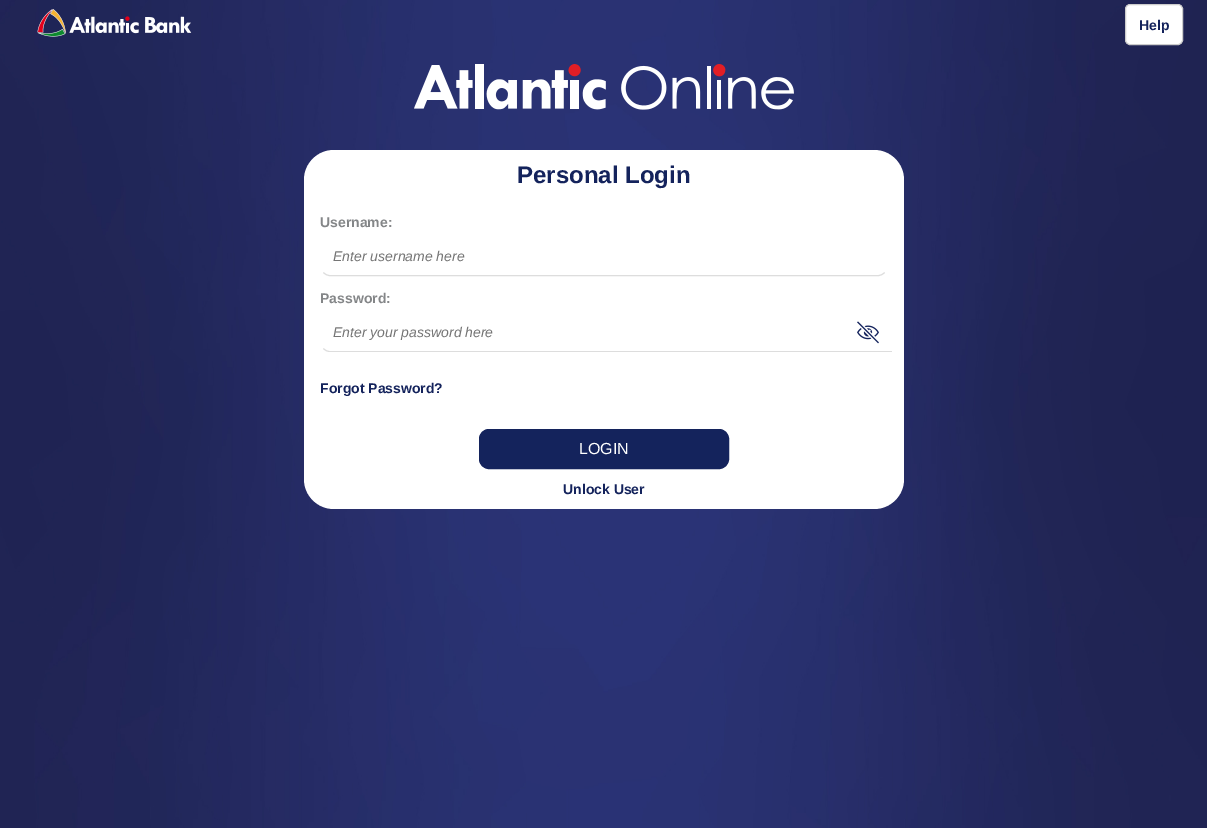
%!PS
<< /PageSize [1207 828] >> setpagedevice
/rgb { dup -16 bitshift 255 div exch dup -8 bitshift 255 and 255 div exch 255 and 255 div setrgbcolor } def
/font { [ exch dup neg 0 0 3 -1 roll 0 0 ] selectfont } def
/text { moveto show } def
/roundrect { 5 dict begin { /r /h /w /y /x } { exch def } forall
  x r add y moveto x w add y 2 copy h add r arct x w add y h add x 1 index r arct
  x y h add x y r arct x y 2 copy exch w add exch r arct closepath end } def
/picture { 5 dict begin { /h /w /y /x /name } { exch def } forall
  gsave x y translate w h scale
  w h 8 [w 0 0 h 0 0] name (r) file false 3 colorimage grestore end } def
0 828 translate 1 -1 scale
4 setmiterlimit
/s1 { /LiberationSans-Bold 14 font 16#14235C rgb } def
/s2 { /LiberationSans-Bold 24 font 16#14235C rgb } def
/s3 { /LiberationSans-Bold 14 font 16#848688 rgb } def
/s4 { /LiberationSans-Italic 14 font 16#757575 rgb } def
/s5 { /LiberationSans-Regular 16 font 16#FFFFFF rgb } def
16#FFFFFF rgb
0 0 1207 828 rectfill
(pic1.raw) 0 0 1207 828 picture
(pic2.raw) 37 9 155 28 picture
1125.5 4.5 57 40 4.5 roundrect gsave fill grestore
16#CCCCCC rgb
stroke
s1
(Help) 1139 30 text
(pic3.raw) 414 64 380 46 picture
16#FFFFFF rgb
304 150 600 359 30 roundrect fill
s2
(Personal Login) 517 183 text
s3
(Username:) 320 227 text
16#DDDDDD rgb
884.5 272.5 moveto 883 274.5 880.5 275.5 878 275.5 curveto 330 275.5 lineto 327.5 275.5 325 274.5 323.5 272.5 curveto stroke
s4
(Enter username here) 333 261 text
s3
(Password:) 320 303 text
gsave
320 312 572 40 rectclip
16#DDDDDD rgb
923.5 348.5 moveto 922 350.5 919.5 351.5 917 351.5 curveto 330 351.5 lineto 327.5 351.5 325 350.5 323.5 348.5 curveto stroke
grestore
s4
(Enter your password here) 333 337 text
(pic4.raw) 857 321 22 23 picture
s1
(Forgot Password?) 320 393 text
479.5 429.5 249 39 9.5 roundrect gsave fill grestore
stroke
s5
(LOGIN) 579 454 text
s1
(Unlock User) 563 494 text
showpage
